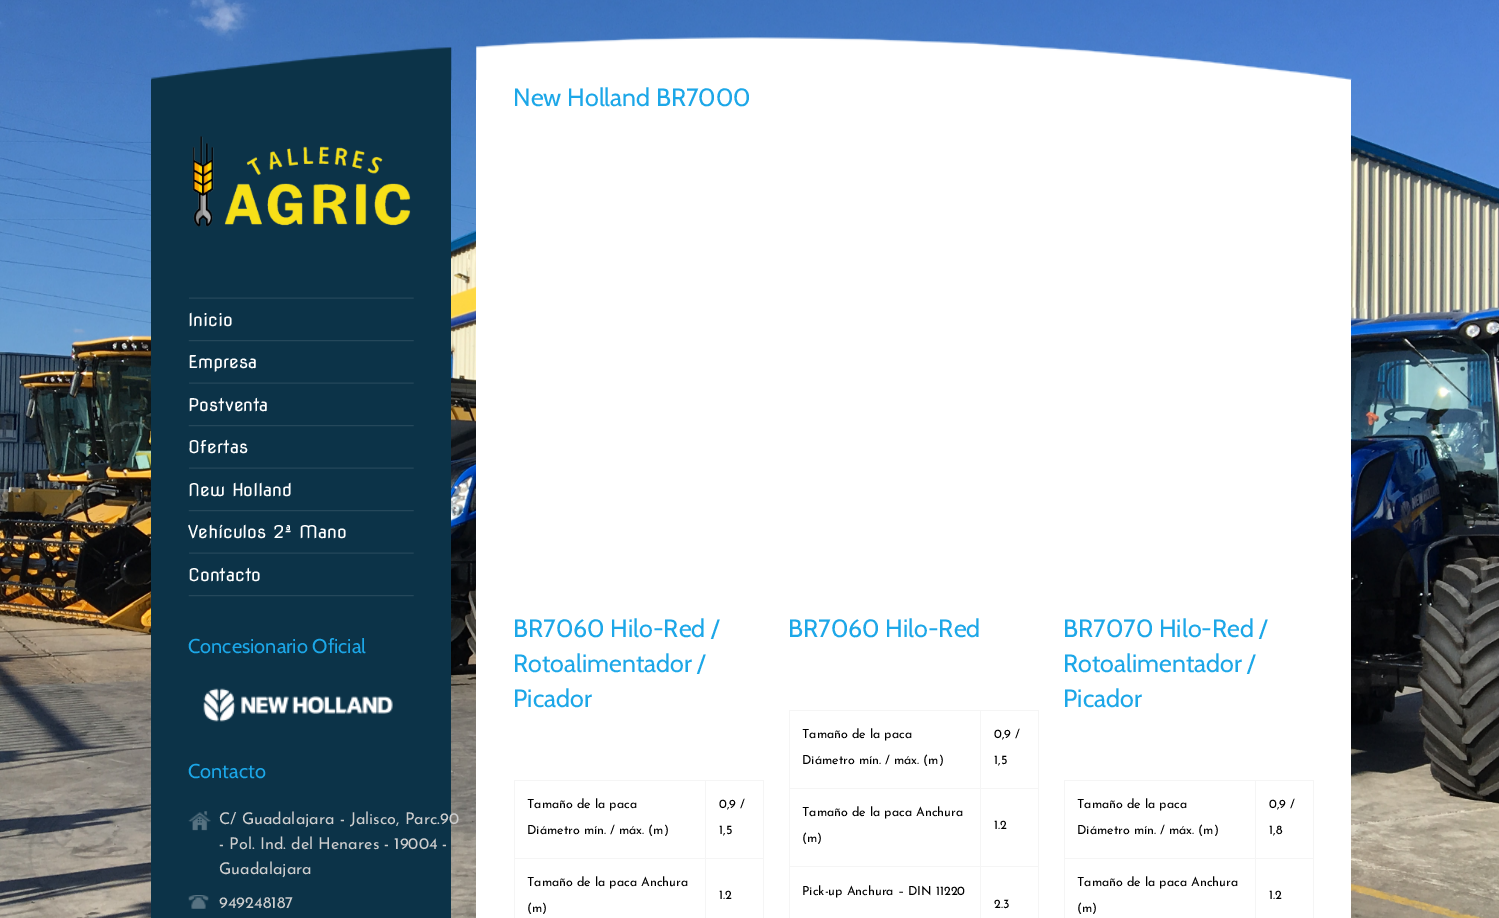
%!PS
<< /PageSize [1499 918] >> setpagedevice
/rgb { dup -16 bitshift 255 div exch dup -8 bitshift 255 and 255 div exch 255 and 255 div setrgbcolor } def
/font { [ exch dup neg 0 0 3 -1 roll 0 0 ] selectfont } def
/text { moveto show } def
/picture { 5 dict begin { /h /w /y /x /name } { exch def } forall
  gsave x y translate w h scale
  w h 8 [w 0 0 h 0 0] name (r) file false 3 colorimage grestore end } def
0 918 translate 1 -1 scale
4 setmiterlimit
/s1 { /NovaFlat-Regular 17.5 font 16#FFFFFF rgb } def
/s2 { /Cabin-Regular 20 font 16#1CA7E8 rgb } def
/s3 { /JosefinSans-Thin 16.25 font 16#CECECE rgb } def
/s4 { /Cabin-Regular 25 font 16#1CA7E8 rgb } def
/s5 { /JosefinSans-Thin 12.5 font 16#000000 rgb } def
16#FFFFFF rgb
0 0 1499 918 rectfill
(pic1.raw) 0 0 1499 918 picture
(pic2.raw) 151 47 301 33 picture
16#0C3348 rgb
151 80 300 838 rectfill
(pic3.raw) 192 136 219 91 picture
(pic4.raw) 189 297 225 2 picture
(pic5.raw) 188 340 226 2 picture
s1
(Inicio) 188 326 text
(pic4.raw) 189 382 225 2 picture
(Empresa) 188 368 text
(pic5.raw) 188 425 226 2 picture
(Postventa) 188 411 text
(pic4.raw) 189 467 225 2 picture
(Ofertas) 188 453 text
(pic5.raw) 188 510 226 2 picture
(New Holland) 188 496 text
(pic4.raw) 189 552 225 2 picture
(Vehículos 2ª Mano) 188 538 text
(pic5.raw) 188 595 226 2 picture
(Contacto) 188 581 text
s2
(Concesionario Oficial) 188 653 text
(pic6.raw) 203 688 190 34 picture
(Contacto) 188 778 text
(pic7.raw) 188 811 23 20 picture
s3
(C/ Guadalajara - Jalisco, Parc.90) 219 824 text
(- Pol. Ind. del Henares - 19004 -) 219 849 text
(Guadalajara) 219 874 text
(pic8.raw) 188 895 21 14 picture
(949248187) 219 908 text
(pic9.raw) 476 37 876 43 picture
16#FFFFFF rgb
476 80 875 838 rectfill
s4
(New Holland BR7000) 513 106 text
(BR7060 Hilo-Red /) 513 637 text
(Rotoalimentador /) 513 672 text
(Picador) 513 707 text
16#F5F5F5 rgb
514 780 250 1 rectfill
763 780 1 138 rectfill
514 858 249 1 rectfill
514 781 1 137 rectfill
s5
(Tamaño de la paca) 527 808 text
(Diámetro mín. / máx. \(m\)) 527 834 text
16#F5F5F5 rgb
705 781 1 137 rectfill
s5
(0,9 /) 719 808 text
(1,5) 719 834 text
(Tamaño de la paca Anchura) 527 886 text
(\(m\)) 527 912 text
(1.2) 719 899 text
s4
(BR7060 Hilo-Red) 788 637 text
16#F5F5F5 rgb
789 710 250 1 rectfill
1038 710 1 208 rectfill
789 788 249 1 rectfill
789 711 1 78 rectfill
s5
(Tamaño de la paca) 802 738 text
(Diámetro mín. / máx. \(m\)) 802 764 text
16#F5F5F5 rgb
980 711 1 78 rectfill
s5
(0,9 /) 994 738 text
(1,5) 994 764 text
16#F5F5F5 rgb
789 866 249 1 rectfill
789 789 1 129 rectfill
s5
(Tamaño de la paca Anchura) 802 816 text
(\(m\)) 802 842 text
16#F5F5F5 rgb
980 789 1 129 rectfill
s5
(1.2) 994 829 text
(Pick-up Anchura – DIN 11220) 802 895 text
(2.3) 994 908 text
s4
(BR7070 Hilo-Red /) 1063 637 text
(Rotoalimentador /) 1063 672 text
(Picador) 1063 707 text
16#F5F5F5 rgb
1064 780 250 1 rectfill
1313 780 1 138 rectfill
1064 858 249 1 rectfill
1064 781 1 137 rectfill
s5
(Tamaño de la paca) 1077 808 text
(Diámetro mín. / máx. \(m\)) 1077 834 text
16#F5F5F5 rgb
1255 781 1 137 rectfill
s5
(0,9 /) 1269 808 text
(1,8) 1269 834 text
(Tamaño de la paca Anchura) 1077 886 text
(\(m\)) 1077 912 text
(1.2) 1269 899 text
showpage
